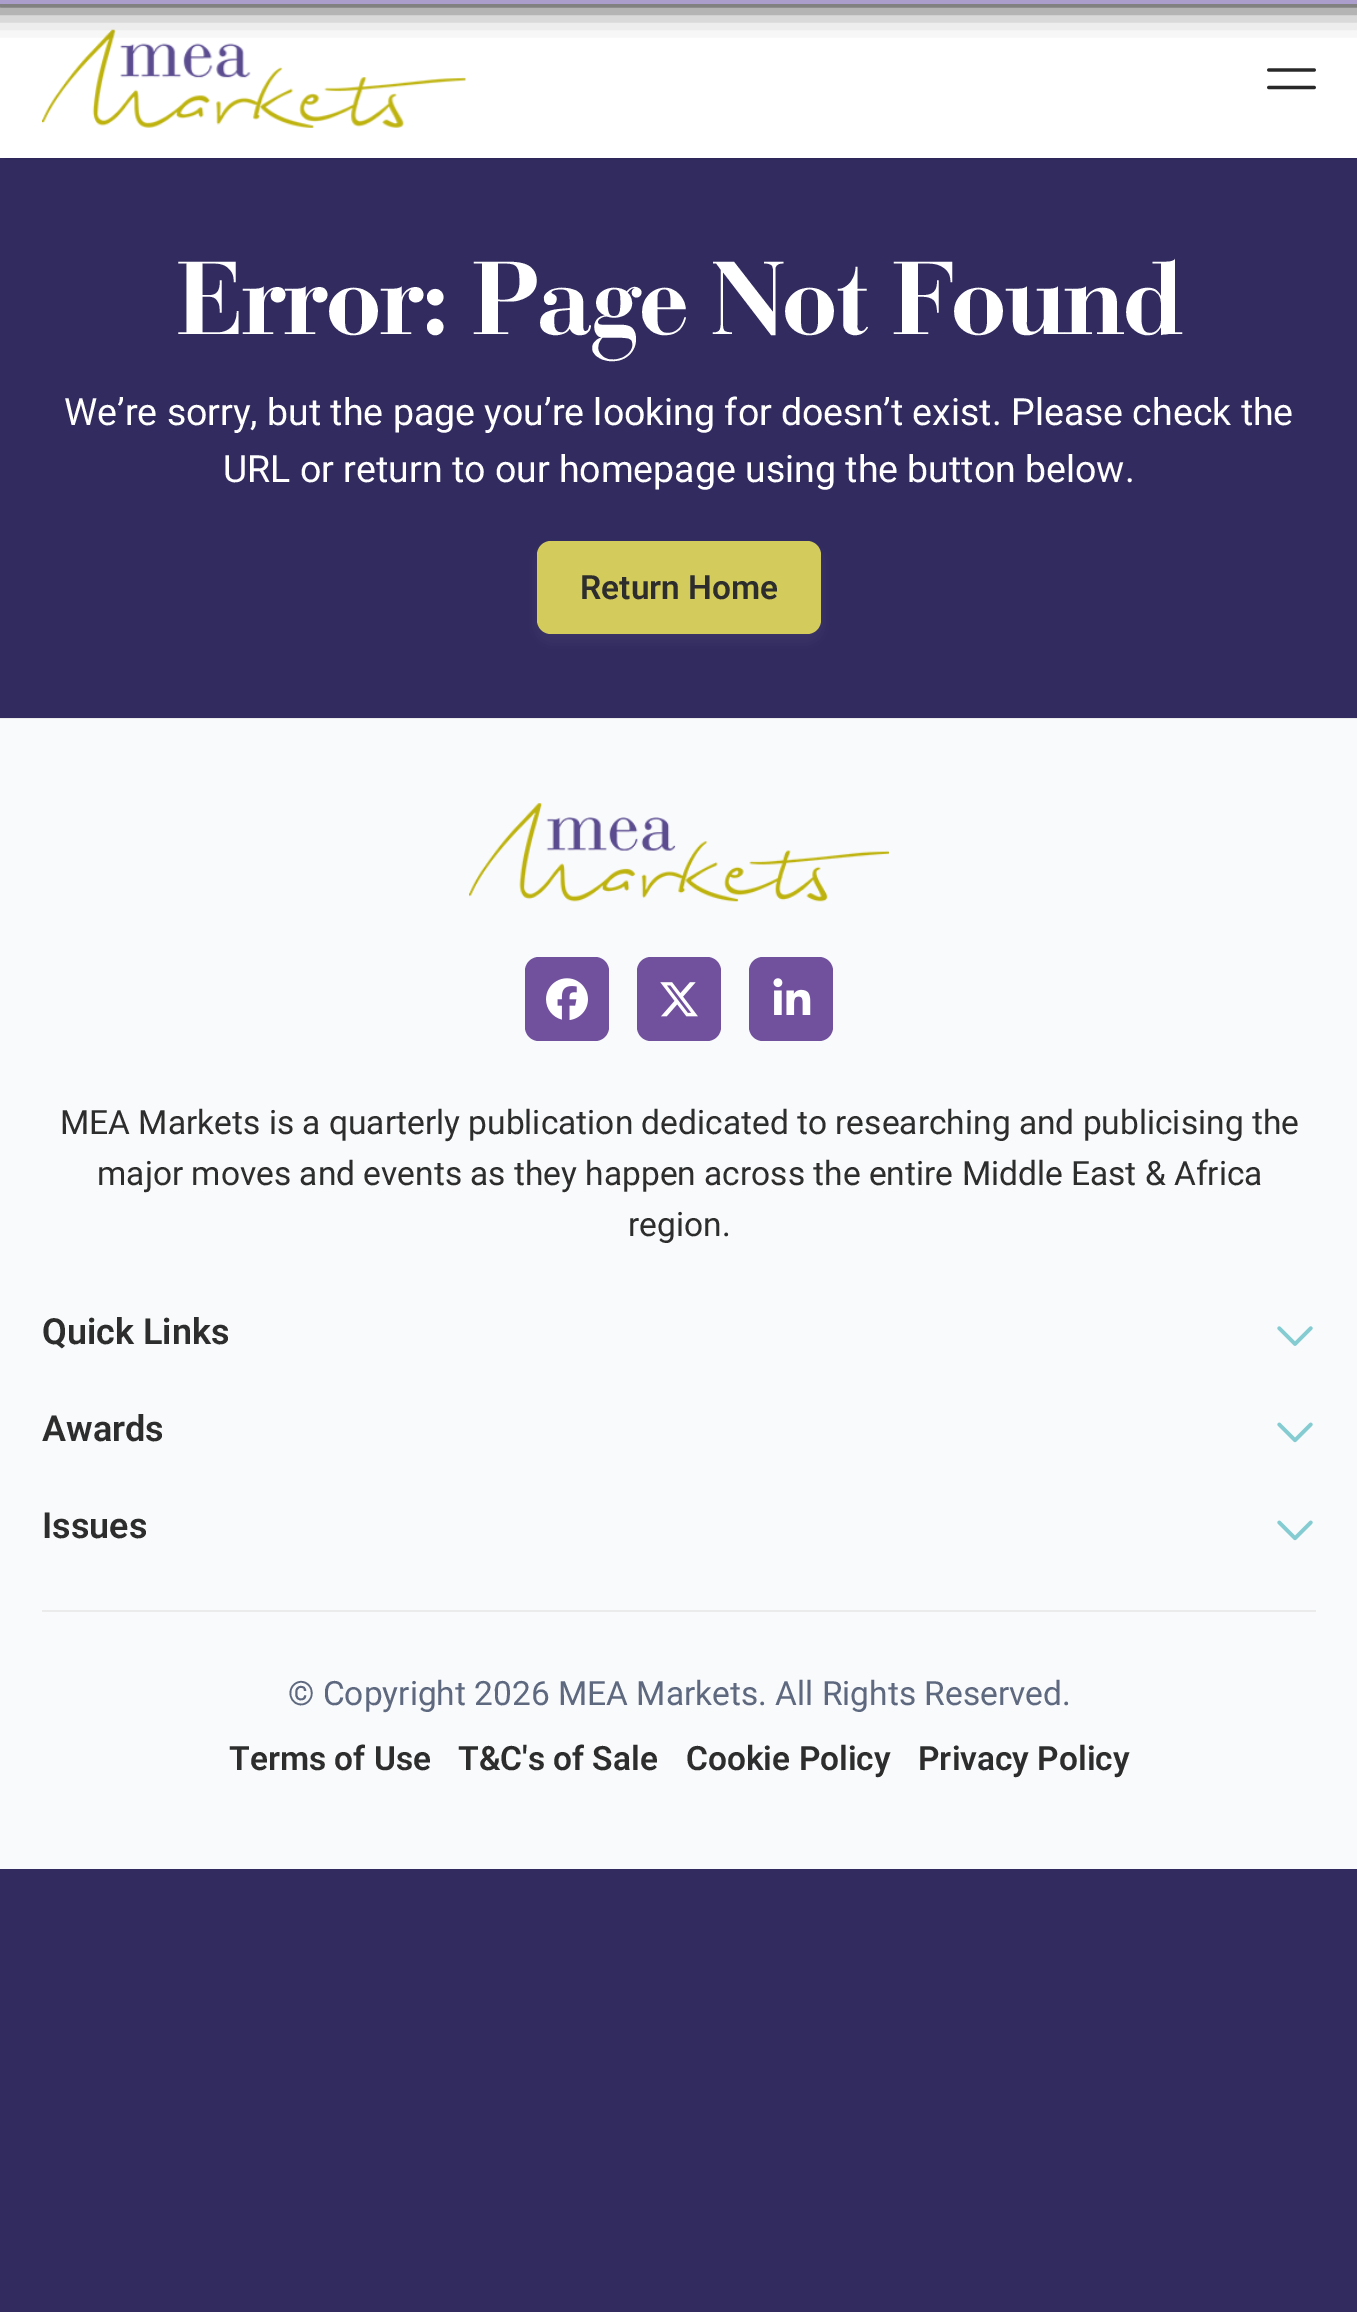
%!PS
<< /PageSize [1357 2312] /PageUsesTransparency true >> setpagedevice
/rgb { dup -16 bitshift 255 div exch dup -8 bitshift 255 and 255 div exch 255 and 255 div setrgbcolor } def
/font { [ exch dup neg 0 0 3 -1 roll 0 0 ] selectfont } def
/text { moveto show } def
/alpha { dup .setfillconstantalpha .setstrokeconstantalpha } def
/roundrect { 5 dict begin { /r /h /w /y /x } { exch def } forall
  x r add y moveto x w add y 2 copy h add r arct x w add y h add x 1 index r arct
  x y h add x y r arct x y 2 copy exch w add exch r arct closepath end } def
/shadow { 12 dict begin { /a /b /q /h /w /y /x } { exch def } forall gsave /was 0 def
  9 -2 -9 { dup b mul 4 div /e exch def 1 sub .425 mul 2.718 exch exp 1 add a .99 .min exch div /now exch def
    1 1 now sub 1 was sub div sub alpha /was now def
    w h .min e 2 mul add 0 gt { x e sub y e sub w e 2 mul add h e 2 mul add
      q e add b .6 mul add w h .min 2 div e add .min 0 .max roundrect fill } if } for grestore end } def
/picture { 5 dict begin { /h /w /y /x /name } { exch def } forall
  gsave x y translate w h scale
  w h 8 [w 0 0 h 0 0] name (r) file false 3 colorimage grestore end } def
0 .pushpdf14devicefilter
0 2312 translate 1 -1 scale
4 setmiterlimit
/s1 { /Roboto-Regular 37.5 font 16#FFFFFF rgb } def
/s2 { /Roboto-SemiBold 33.5 font 16#2D2D2D rgb } def
/s3 { /Roboto-Regular 33.5 font 16#2D2D2D rgb } def
/s4 { /Roboto-SemiBold 36 font 16#2D2D2D rgb } def
/s5 { /Roboto-Regular 33.5 font 16#5E697F rgb } def
16#312B60 rgb
0 0 1357 2312 rectfill
16#000000 rgb
5 9 1350 149 0 2 0.16 shadow
16#FFFFFF rgb
0 4 1357 154 rectfill
(pic1.raw) 42 29 424 99 picture
16#000000 rgb
0 0 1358 4 0 15 1 shadow
16#AB9ECC rgb
0 0 1357 4 rectfill
(pic2.raw) 1267 68 49 22 picture
/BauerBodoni-Bold 102.75 font
16#FFFFFF rgb
176 334 moveto -3.5 0 (Error: Page Not Found) ashow
s1
(We’re sorry, but the page you’re looking for doesn’t exist. Please check the) 64 425 text
(URL or return to our homepage using the button below.) 223 482 text
16#A0A0A0 rgb
537 548 284 93 14 7 0.1 shadow
16#D3CB5C rgb
537 541 284 93 14 roundrect fill
s2
(Return Home) 580 599 text
16#EBEBEB rgb
0 718 1357 1 rectfill
16#F9FAFB rgb
0 719 1357 1150 rectfill
(pic3.raw) 469 803 420 99 picture
16#71519D rgb
525 957 84 84 14 roundrect fill
(pic4.raw) 546 978 42 42 picture
637 957 84 84 14 roundrect fill
(pic5.raw) 660 982 38 35 picture
749 957 84 84 14 roundrect fill
(pic6.raw) 773 978 38 37 picture
s3
(MEA Markets is a quarterly publication dedicated to researching and publicising the) 60 1134 text
(major moves and events as they happen across the entire Middle East & Africa) 97 1185 text
(region.) 628 1236 text
s4
(Quick Links) 42 1344 text
(pic7.raw) 1277 1326 36 20 picture
(Awards) 42 1441 text
(pic8.raw) 1277 1422 36 21 picture
(Issues) 42 1538 text
(pic8.raw) 1277 1520 36 21 picture
16#EBEBEB rgb
42 1610 1274 2 rectfill
s5
(© Copyright 2026 MEA Markets. All Rights Reserved.) 288 1705 text
s2
(Terms of Use) 229 1770 text
(T&C's of Sale) 458 1770 text
(Cookie Policy) 686 1770 text
(Privacy Policy) 918 1770 text
.poppdf14devicefilter showpage
